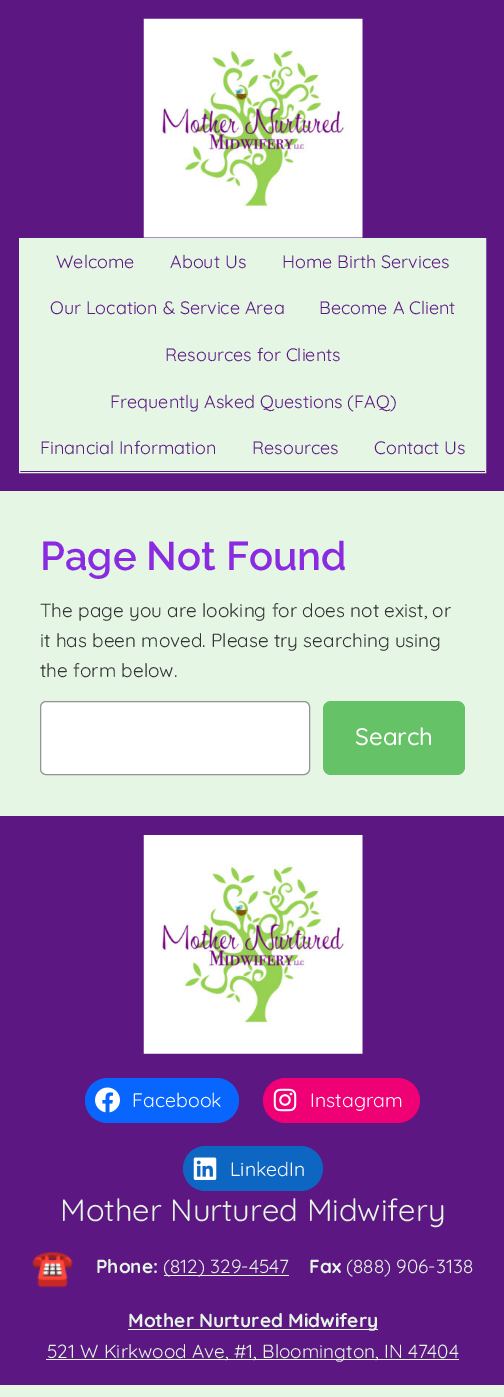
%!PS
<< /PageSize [504 1397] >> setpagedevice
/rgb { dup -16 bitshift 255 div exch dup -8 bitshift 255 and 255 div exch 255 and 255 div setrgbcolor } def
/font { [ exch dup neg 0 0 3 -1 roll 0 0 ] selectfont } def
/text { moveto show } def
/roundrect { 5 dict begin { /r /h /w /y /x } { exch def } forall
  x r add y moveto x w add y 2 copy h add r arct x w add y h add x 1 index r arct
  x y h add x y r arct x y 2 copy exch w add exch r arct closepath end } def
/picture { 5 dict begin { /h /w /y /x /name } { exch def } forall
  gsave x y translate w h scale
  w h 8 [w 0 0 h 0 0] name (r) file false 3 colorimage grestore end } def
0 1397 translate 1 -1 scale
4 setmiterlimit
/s1 { /Quicksand-Regular 18 font 16#5D1783 rgb } def
/s2 { /Raleway-SemiBold 40 font 16#8A2BE2 rgb } def
/s3 { /Quicksand-Regular 19 font 16#333333 rgb } def
/s4 { /Quicksand-Medium 24 font 16#FFFFFF rgb } def
/s5 { /Quicksand-Regular 19.5 font 16#FFFFFF rgb } def
/s6 { /Quicksand-Regular 30.9 font 16#E5F6E5 rgb } def
/s7 { /Quicksand-Bold 19 font 16#E5F6E5 rgb } def
/s8 { /Quicksand-Regular 19 font 16#E5F6E5 rgb } def
16#E5F6E5 rgb
0 0 504 1397 rectfill
16#5D1783 rgb
0 0 504 491 rectfill
(pic1.raw) 143 18 220 220 picture
16#E5F6E5 rgb
19.5 238.5 466 234 rectstroke
20 239 465 232 rectfill
s1
(Welcome) 56 268 text
(About Us) 170 268 text
(Home Birth Services) 282 268 text
(Our Location & Service Area) 50 314 text
(Become A Client) 319 314 text
(Resources for Clients) 165 361 text
(Frequently Asked Questions \(FAQ\)) 110 408 text
(Financial Information) 40 454 text
(Resources) 252 454 text
(Contact Us) 374 454 text
s2
(Page Not Found) 40 570 text
s3
(The page you are looking for does not exist, or) 40 617 text
(it has been moved. Please try searching using) 40 647 text
(the form below.) 40 677 text
16#FFFFFF rgb
40.5 701.5 269 73 5.5 roundrect gsave fill grestore
16#949494 rgb
stroke
16#66C266 rgb
323 701 142 74 8 roundrect fill
s4
(Search) 355 745 text
16#5D1783 rgb
0 816 504 569 rectfill
(pic2.raw) 143 835 220 219 picture
16#0866FF rgb
85 1078 154 45 22.5 roundrect fill
(pic3.raw) 95 1087 25 26 picture
s5
(Facebook) 132 1107 text
16#F00075 rgb
263 1078 157 45 22.5 roundrect fill
(pic4.raw) 273 1088 24 24 picture
s5
(Instagram) 310 1107 text
16#0D66C2 rgb
183 1146 140 45 22.5 roundrect fill
(pic5.raw) 193 1157 24 23 picture
s5
(LinkedIn) 230 1176 text
s6
(Mother Nurtured Midwifery) 60 1221 text
(pic6.raw) 32 1252 41 36 picture
s7
(Phone:) 96 1273 text
164 1275 125 1 rectfill
s8
(\(812\) 329-4547) 163 1273 text
s7
(Fax) 309 1273 text
s8
(\(888\) 906-3138) 346 1273 text
128 1329 250 1 rectfill
s7
(Mother Nurtured Midwifery) 128 1327 text
46 1359 413 1 rectfill
s8
(521 W Kirkwood Ave, #1, Bloomington, IN 47404) 47 1358 text
showpage
